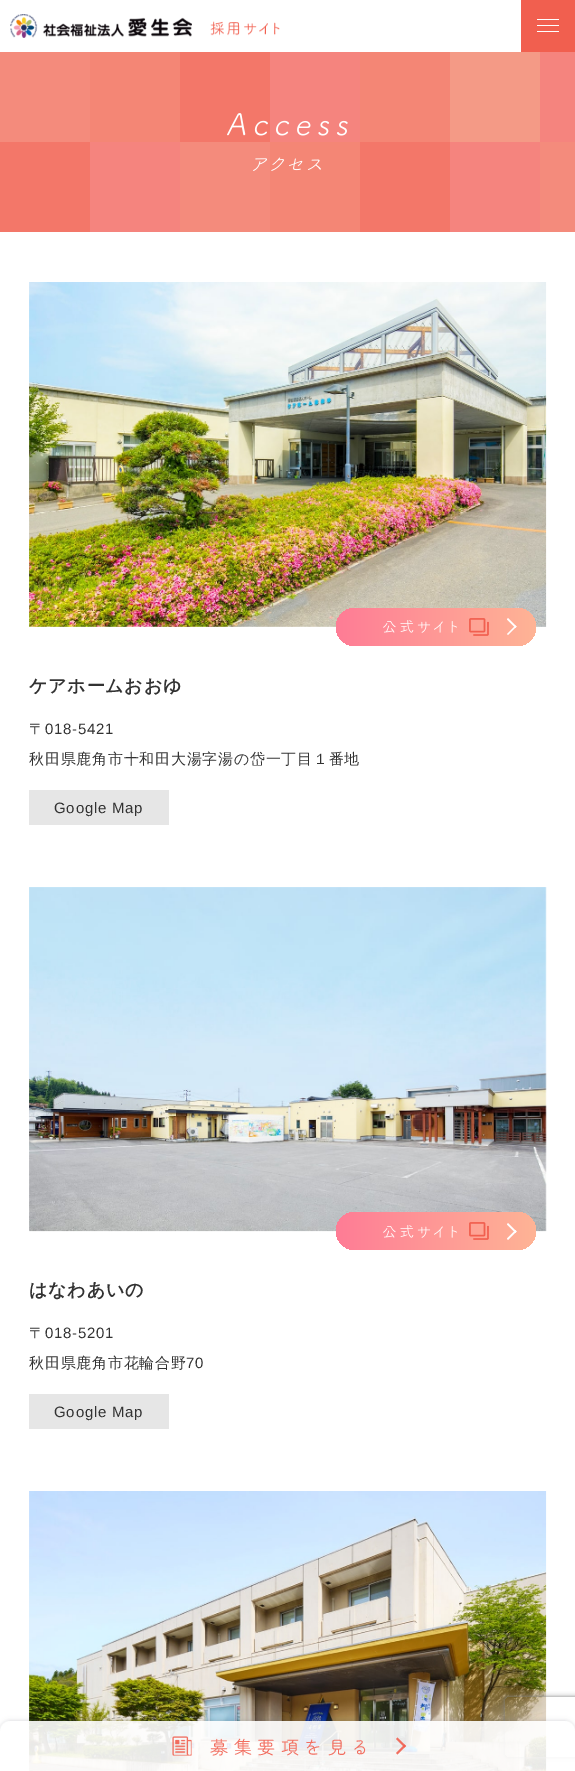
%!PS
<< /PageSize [575 1771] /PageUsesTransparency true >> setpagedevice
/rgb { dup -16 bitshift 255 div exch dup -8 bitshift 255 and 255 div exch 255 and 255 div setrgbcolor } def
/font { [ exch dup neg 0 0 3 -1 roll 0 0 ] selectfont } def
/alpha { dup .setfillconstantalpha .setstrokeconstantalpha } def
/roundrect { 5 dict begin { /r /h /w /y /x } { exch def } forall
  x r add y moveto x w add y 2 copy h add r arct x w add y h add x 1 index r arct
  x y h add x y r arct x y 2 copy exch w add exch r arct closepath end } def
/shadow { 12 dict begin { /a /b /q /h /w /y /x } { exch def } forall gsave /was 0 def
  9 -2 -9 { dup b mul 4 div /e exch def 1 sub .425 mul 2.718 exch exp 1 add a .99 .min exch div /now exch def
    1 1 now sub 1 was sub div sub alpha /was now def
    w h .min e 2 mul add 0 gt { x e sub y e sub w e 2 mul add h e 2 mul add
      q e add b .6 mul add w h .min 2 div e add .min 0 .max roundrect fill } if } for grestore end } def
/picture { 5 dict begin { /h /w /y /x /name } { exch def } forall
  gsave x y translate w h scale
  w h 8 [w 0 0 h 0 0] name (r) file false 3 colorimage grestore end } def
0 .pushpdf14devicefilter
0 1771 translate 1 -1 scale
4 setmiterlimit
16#FFFFFF rgb
0 0 575 1771 rectfill
(pic1.raw) 0 52 575 180 picture
(pic2.raw) 227 113 121 58 picture
(pic3.raw) 29 282 518 345 picture
gsave 336 608 200 38 19 roundrect clip newpath
<< /ShadingType 2 /ColorSpace /DeviceRGB /Coords [336 627 536 627] /Extend [true true] /Function << /FunctionType 3 /Domain [0 1] /Functions [<< /FunctionType 2 /Domain [0 1] /C0 [0.996 0.486 0.584] /C1 [0.996 0.596 0.584] /N 1 >> << /FunctionType 2 /Domain [0 1] /C0 [0.996 0.596 0.584] /C1 [1 0.706 0.588] /N 1 >>] /Bounds [0.5] /Encode [0 1 0 1] >> >> shfill grestore
(pic4.raw) 383 620 74 13 picture
(pic5.raw) 469 618 20 18 picture
508 618 moveto 516.5 626.5 lineto 515.5 628 lineto 507 619.5 lineto closepath fill
515.5 625.5 moveto 516.5 626.5 lineto 508 635 lineto 507 634 lineto closepath fill
/WenQuanYiZenHei-Bold 18 font
16#323232 rgb
29 692 moveto 0.75 0 (ケアホームおおゆ) ashow
/WenQuanYiZenHei-Medium 15 font
29 734 moveto 0.75 0 (〒) ashow
/LiberationSans-Regular 15 font
45 734 moveto 0.75 0 (018-5421) ashow
/WenQuanYiZenHei-Medium 15 font
29 764 moveto 0.75 0 (秋田県鹿角市十和田大湯字湯の岱一丁目１番地) ashow
16#E6E6E6 rgb
29 790 140 35 rectfill
/LiberationSans-Regular 15 font
16#323232 rgb
54 813 moveto 0.75 0 (Google Map) ashow
(pic6.raw) 29 887 518 345 picture
gsave 336 1212 200 38 19 roundrect clip newpath
<< /ShadingType 2 /ColorSpace /DeviceRGB /Coords [336 1231 536 1231] /Extend [true true] /Function << /FunctionType 3 /Domain [0 1] /Functions [<< /FunctionType 2 /Domain [0 1] /C0 [0.996 0.486 0.584] /C1 [0.996 0.596 0.584] /N 1 >> << /FunctionType 2 /Domain [0 1] /C0 [0.996 0.596 0.584] /C1 [1 0.706 0.588] /N 1 >>] /Bounds [0.5] /Encode [0 1 0 1] >> >> shfill grestore
(pic4.raw) 383 1225 74 13 picture
(pic5.raw) 469 1222 20 18 picture
16#FFFFFF rgb
508 1223 moveto 516.5 1231.5 lineto 515.5 1233 lineto 507 1224.5 lineto closepath fill
515.5 1230 moveto 516.5 1231.5 lineto 508 1240 lineto 507 1238.5 lineto closepath fill
/WenQuanYiZenHei-Bold 18 font
16#323232 rgb
29 1296 moveto 0.75 0 (はなわあいの) ashow
/WenQuanYiZenHei-Medium 15 font
29 1338 moveto 0.75 0 (〒) ashow
/LiberationSans-Regular 15 font
45 1338 moveto 0.75 0 (018-5201) ashow
/WenQuanYiZenHei-Medium 15 font
29 1368 moveto 0.75 0 (秋田県鹿角市花輪合野) ashow
/LiberationSans-Regular 15 font
186 1368 moveto 0.75 0 (70) ashow
16#E6E6E6 rgb
29 1394 140 35 rectfill
16#323232 rgb
54 1417 moveto 0.75 0 (Google Map) ashow
(pic7.raw) 29 1491 518 280 picture
(pic8.raw) 10 14 270 24 picture
16#F15F4F rgb
521 0 54 52 rectfill
16#FFFFFF rgb
537 19 22 1 rectfill
537 25 22 1 rectfill
537 31 22 1 rectfill
gsave
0 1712 moveto 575 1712 lineto 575 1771 lineto 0 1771 lineto closepath 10 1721 moveto 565 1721 lineto 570.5 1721 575 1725.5 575 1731 curveto 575 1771 lineto 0 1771 lineto 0 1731 lineto 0 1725.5 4.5 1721 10 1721 curveto closepath eoclip newpath
16#434755 rgb
0 1721 575 50 10 2.5 0.24 shadow
grestore
gsave
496 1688 moveto 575 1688 lineto 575 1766 lineto 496 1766 lineto closepath 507 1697 moveto 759 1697 lineto 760 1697 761 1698 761 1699 curveto 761 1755 lineto 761 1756 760 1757 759 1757 curveto 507 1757 lineto 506 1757 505 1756 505 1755 curveto 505 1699 lineto 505 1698 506 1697 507 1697 curveto closepath eoclip newpath
16#808080 rgb
505 1697 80 60 2 2.5 1 shadow
grestore
0.9 alpha
10 1721 moveto 565 1721 lineto 570.5 1721 575 1725.5 575 1731 curveto 575 1771 lineto 0 1771 lineto 0 1731 lineto 0 1725.5 4.5 1721 10 1721 curveto closepath fill
1 alpha
(pic9.raw) 172 1736 20 20 picture
/ZenMaruGothic-Regular 18 font
16#F26E60 rgb
210 1754 moveto 5.5 0 (募集要項を見る) ashow
0.9 alpha
16#F15F4F rgb
397.5 1737.5 moveto 406 1746 lineto 404.5 1747.5 lineto 396 1739 lineto closepath fill
404.5 1744.5 moveto 406 1746 lineto 397.5 1754.5 lineto 396 1753 lineto closepath fill
.poppdf14devicefilter showpage
